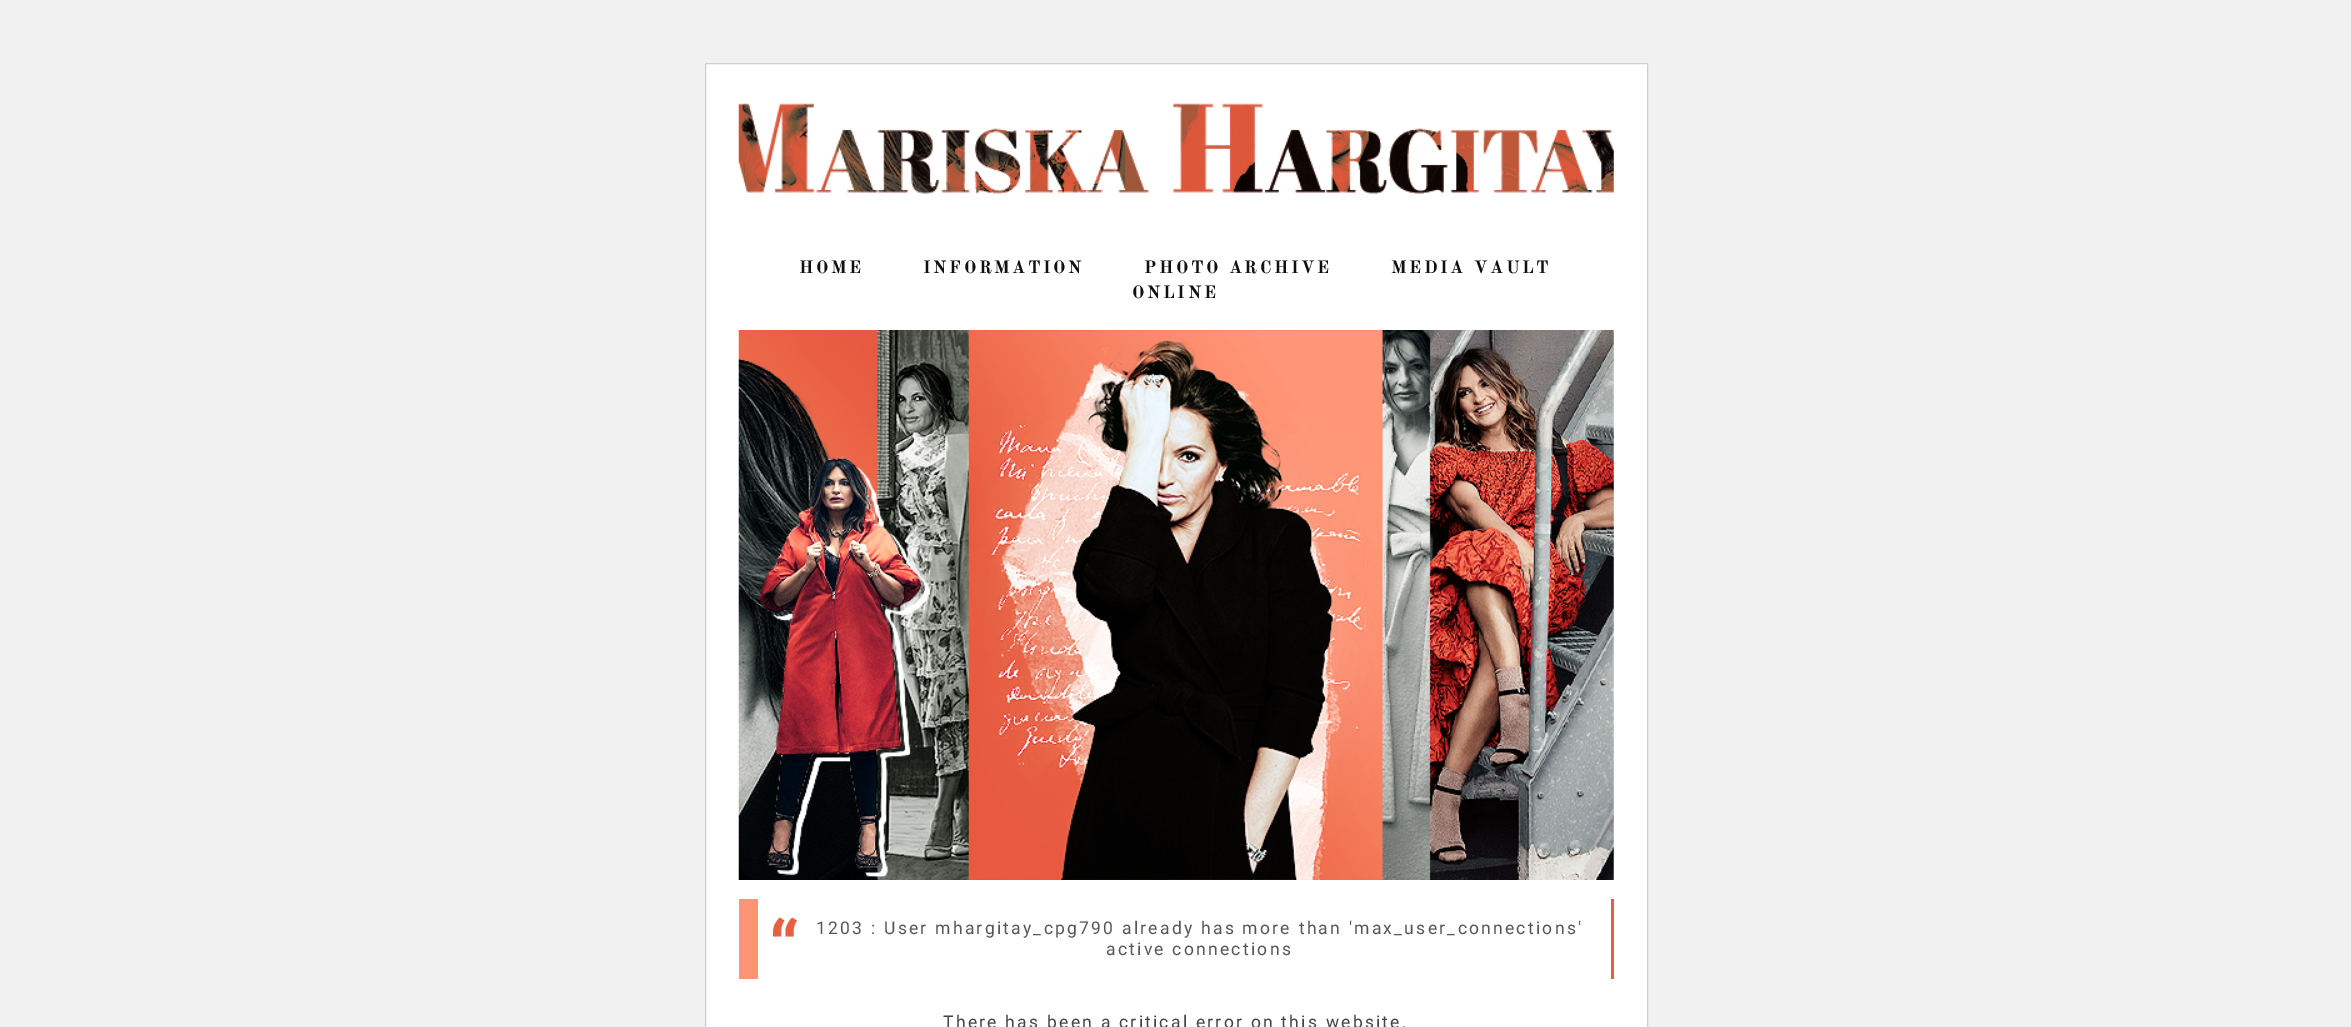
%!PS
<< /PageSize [2351 1027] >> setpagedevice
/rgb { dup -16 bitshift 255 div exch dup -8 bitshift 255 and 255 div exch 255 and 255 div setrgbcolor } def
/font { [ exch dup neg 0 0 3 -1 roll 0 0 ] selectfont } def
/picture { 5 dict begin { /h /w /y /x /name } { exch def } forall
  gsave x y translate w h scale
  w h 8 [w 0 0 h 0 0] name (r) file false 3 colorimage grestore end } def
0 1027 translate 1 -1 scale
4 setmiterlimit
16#F1F1F1 rgb
0 0 2351 1027 rectfill
16#FFFFFF rgb
705.5 63.5 moveto 1647.5 63.5 lineto 1647.5 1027.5 lineto 705.5 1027.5 lineto closepath gsave fill grestore
16#CCD0D4 rgb
stroke
(pic1.raw) 738 103 876 91 picture
/OldStandardTT-Bold 17.5 font
16#101010 rgb
799 273 moveto 2.6 0 (HOME) ashow
923 273 moveto 2.6 0 (INFORMATION) ashow
1144 273 moveto 2.6 0 (PHOTO ARCHIVE) ashow
1391 273 moveto 2.6 0 (MEDIA VAULT) ashow
1132 298 moveto 2.6 0 (ONLINE) ashow
(pic2.raw) 738 330 876 550 picture
16#E95F44 rgb
1611 899 3 80 rectfill
16#FD9474 rgb
739 899 19 80 rectfill
/Roboto-Bold 75 font
16#E95F44 rgb
769 975 moveto 2.25 0 (“) ashow
/Roboto-Regular 17.5 font
16#575757 rgb
816 934 moveto 2.25 0 (1203 : User mhargitay_cpg790 already has more than 'max_user_connections') ashow
1106 955 moveto 2.25 0 (active connections) ashow
16#444444 rgb
943 1028 moveto 2.25 0 (There has been a critical error on this website.) ashow
showpage
